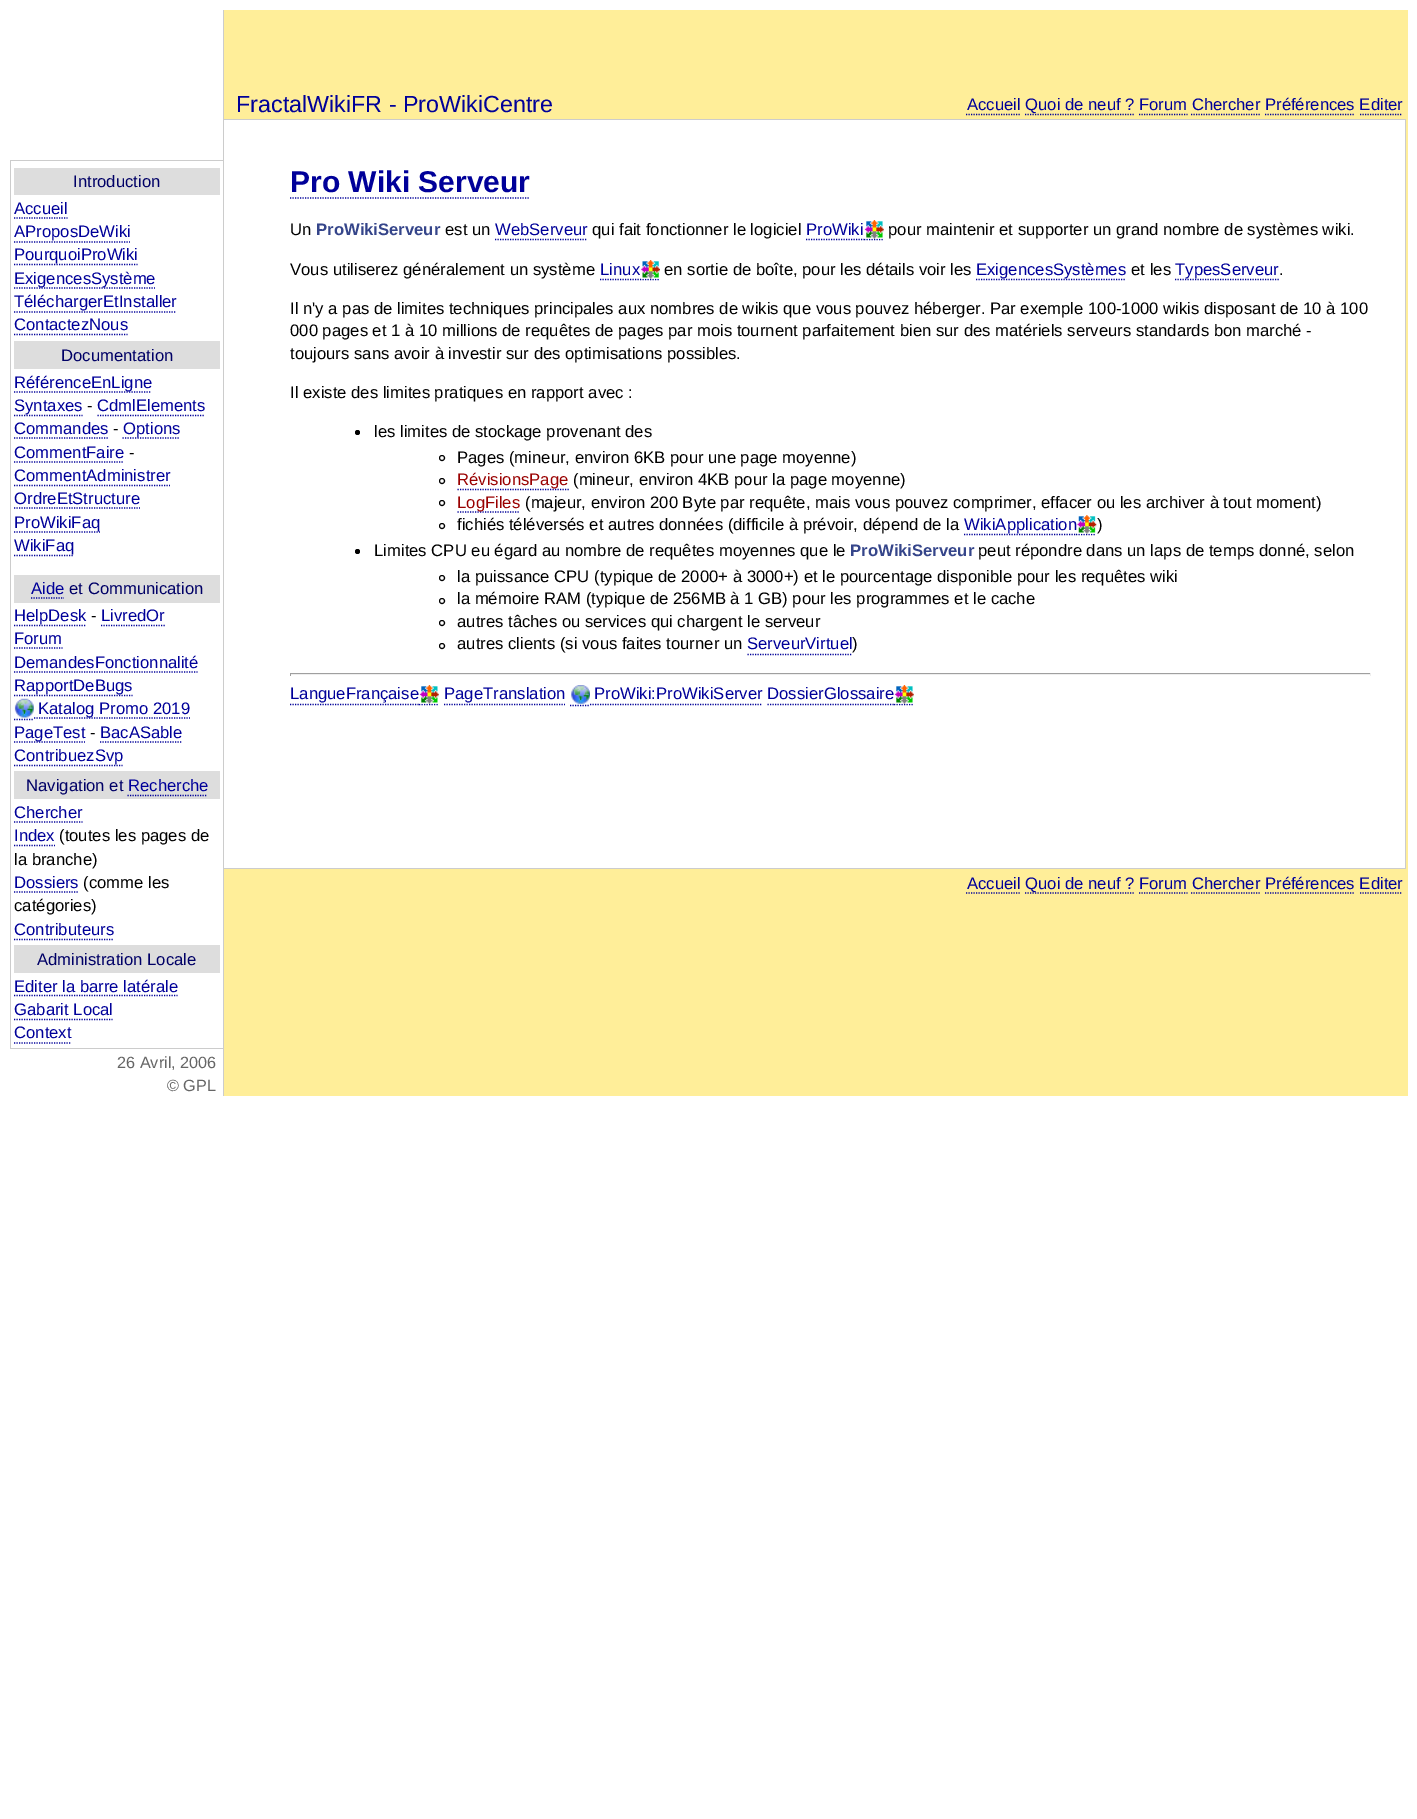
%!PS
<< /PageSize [1417 1819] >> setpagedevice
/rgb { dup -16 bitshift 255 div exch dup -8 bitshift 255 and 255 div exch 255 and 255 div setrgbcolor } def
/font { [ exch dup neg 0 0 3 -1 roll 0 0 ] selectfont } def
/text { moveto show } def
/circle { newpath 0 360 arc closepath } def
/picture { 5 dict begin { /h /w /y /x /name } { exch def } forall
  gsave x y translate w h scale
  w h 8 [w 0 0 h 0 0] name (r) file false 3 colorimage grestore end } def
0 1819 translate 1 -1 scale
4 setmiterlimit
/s1 { /LiberationSans-Regular 16.67 font 16#000066 rgb } def
/s2 { /LiberationSans-Regular 16.67 font 16#000099 rgb } def
/s3 { /LiberationSans-Regular 16.67 font 16#000000 rgb } def
/s4 { /LiberationSans-Regular 16.25 font 16#666666 rgb } def
/s5 { /LiberationSans-Regular 23.3 font 16#000099 rgb } def
/s6 { /LiberationSans-Bold 30 font 16#000099 rgb } def
/s7 { /LiberationSans-Bold 16.67 font 16#35458A rgb } def
/s8 { /LiberationSans-Regular 16.67 font 16#990000 rgb } def
16#FFFFFF rgb
0 0 1417 1819 rectfill
16#CCCCCC rgb
10 160 213 1 rectfill
10 1048 213 1 rectfill
10 160 1 889 rectfill
16#DDDDDD rgb
14 168 206 27 rectfill
s1
(Introduction) 73 187 text
s2
(Accueil) 14 214 text
1.2 setlinewidth
[1.25 1.25] 0 setdash
14 218 moveto 67.5 218 lineto stroke
(AProposDeWiki) 14 237 text
14 242 moveto 130 242 lineto stroke
14 264.5 moveto 137.5 264.5 lineto stroke
(PourquoiProWiki) 14 260 text
14 288 moveto 155 288 lineto stroke
(ExigencesSystème) 14 284 text
(TéléchargerEtInstaller) 14 307 text
14 312 moveto 176 312 lineto stroke
(ContactezNous) 14 330 text
14 334.5 moveto 127.5 334.5 lineto stroke
16#DDDDDD rgb
14 341 206 28 rectfill
s1
(Documentation) 61 361 text
16#000099 rgb
14 392 moveto 151 392 lineto stroke
(RéférenceEnLigne) 14 388 text
14 415.5 moveto 82.5 415.5 lineto stroke
(Syntaxes) 14 411 text
s3
(-) 87 411 text
s2
(CdmlElements) 97 411 text
97.5 415.5 moveto 205 415.5 lineto stroke
(Commandes) 14 434 text
14 438 moveto 109 438 lineto stroke
s3
(-) 113 434 text
16#000099 rgb
122.5 438 moveto 180 438 lineto stroke
(Options) 123 434 text
(CommentFaire) 14 458 text
14 462 moveto 124 462 lineto stroke
s3
(-) 129 458 text
s2
(CommentAdministrer) 14 481 text
14 485.5 moveto 170 485.5 lineto stroke
(OrdreEtStructure) 14 504 text
14 508 moveto 140 508 lineto stroke
14 532 moveto 100 532 lineto stroke
(ProWikiFaq) 14 528 text
14 555.5 moveto 74 555.5 lineto stroke
(WikiFaq) 14 551 text
16#DDDDDD rgb
14 575 206 28 rectfill
s2
(Aide) 31 594 text
31 598 moveto 64 598 lineto stroke
s1
(et Communication) 69 594 text
16#000099 rgb
14 625.5 moveto 86 625.5 lineto stroke
(HelpDesk) 14 621 text
s3
(-) 91 621 text
s2
(LivredOr) 101 621 text
101 625.5 moveto 165 625.5 lineto stroke
(Forum) 14 644 text
14 648 moveto 62.5 648 lineto stroke
(DemandesFonctionnalité) 14 668 text
14 672 moveto 197.5 672 lineto stroke
14 695.5 moveto 132.5 695.5 lineto stroke
(RapportDeBugs) 14 691 text
(pic1.raw) 14 698 20 20 picture
34 718 moveto 190 718 lineto stroke
(Katalog Promo 2019) 38 714 text
14 719.5 moveto 34 719.5 lineto stroke
14 742 moveto 85 742 lineto stroke
(PageTest) 14 738 text
s3
(-) 90 738 text
s2
(BacASable) 100 738 text
100 742 moveto 182.5 742 lineto stroke
14 765.5 moveto 122.5 765.5 lineto stroke
(ContribuezSvp) 14 761 text
16#DDDDDD rgb
14 771 206 28 rectfill
s1
(Navigation et) 26 791 text
s2
(Recherche) 128 791 text
127.5 795.5 moveto 207.5 795.5 lineto stroke
(Chercher) 14 818 text
14 822 moveto 82.5 822 lineto stroke
(Index) 14 841 text
14 845.5 moveto 55 845.5 lineto stroke
s3
(\(toutes les pages de) 59 841 text
(la branche\)) 14 865 text
s2
(Dossiers) 14 888 text
14 892 moveto 79 892 lineto stroke
s3
(\(comme les) 83 888 text
(catégories\)) 14 911 text
s2
(Contributeurs) 14 935 text
14 939.5 moveto 114 939.5 lineto stroke
16#DDDDDD rgb
14 945 206 28 rectfill
s1
(Administration Locale) 37 965 text
s2
(Editer la barre latérale) 14 992 text
14 995.5 moveto 177.5 995.5 lineto stroke
(Gabarit Local) 14 1015 text
14 1019.5 moveto 112.5 1019.5 lineto stroke
(Context) 14 1038 text
14 1043 moveto 71 1043 lineto stroke
s4
(26 Avril, 2006) 117 1068 text
(© GPL) 167 1091 text
16#FFEE99 rgb
224 10 1184 1086 rectfill
16#CCCCCC rgb
223 10 1 1086 rectfill
s5
(FractalWikiFR - ProWikiCentre) 236 112 text
s2
(Accueil) 967 110 text
966 114.5 moveto 1020 114.5 lineto stroke
1025 114.5 moveto 1134 114.5 lineto stroke
(Quoi de neuf ? Forum Chercher Préférences Editer) 1025 110 text
1139 114.5 moveto 1187.5 114.5 lineto stroke
1191 114.5 moveto 1260 114.5 lineto stroke
1265 114.5 moveto 1355 114.5 lineto stroke
1360 114.5 moveto 1402.5 114.5 lineto stroke
16#FFFFFF rgb
224 120 1181 748 rectfill
16#CCCCCC rgb
224 119 1182 1 rectfill
1405 119 1 750 rectfill
224 868 1182 1 rectfill
s6
(Pro Wiki Serveur) 290 192 text
290 198 moveto 530 198 lineto stroke
s3
(Un) 290 235 text
s7
(ProWikiServeur) 316 235 text
s3
(est un) 445 235 text
s2
(WebServeur) 495 235 text
495 239.5 moveto 587.5 239.5 lineto stroke
s3
(qui fait fonctionner le logiciel) 592 235 text
s2
(ProWiki) 806 235 text
806 239.5 moveto 864 239.5 lineto stroke
864 239.5 moveto 884 239.5 lineto stroke
(pic2.raw) 864 220 20 19 picture
s3
(pour maintenir et supporter un grand nombre de systèmes wiki.) 888 235 text
(Vous utiliserez généralement un système) 290 275 text
s2
(Linux) 600 275 text
600 279.5 moveto 640 279.5 lineto stroke
640 279.5 moveto 660 279.5 lineto stroke
(pic3.raw) 641 260 19 19 picture
s3
(en sortie de boîte, pour les détails voir les) 664 275 text
16#000099 rgb
976 279.5 moveto 1126 279.5 lineto stroke
(ExigencesSystèmes) 976 275 text
s3
(et les) 1131 275 text
16#000099 rgb
1175 279.5 moveto 1279 279.5 lineto stroke
(TypesServeur) 1175 275 text
s3
(.) 1279 275 text
(Il n'y a pas de limites techniques principales aux nombres de wikis que vous pouvez héberger. Par exemple 100-1000 wikis disposant de 10 à 100) 290 314 text
(000 pages et 1 à 10 millions de requêtes de pages par mois tournent parfaitement bien sur des matériels serveurs standards bon marché -) 290 336 text
(toujours sans avoir à investir sur des optimisations possibles.) 290 359 text
(Il existe des limites pratiques en rapport avec :) 290 398 text
357.5 432.5 2.5 circle fill
(les limites de stockage provenant des) 374 437 text
1 setlinewidth
[] 0 setdash
442 458 2.5 circle stroke
(Pages \(mineur, environ 6KB pour une page moyenne\)) 457 463 text
442 481 2.5 circle stroke
16#000099 rgb
1.2 setlinewidth
[1.25 1.25] 0 setdash
457.5 489.5 moveto 569 489.5 lineto stroke
s8
(RévisionsPage) 457 485 text
s3
(\(mineur, environ 4KB pour la page moyenne\)) 573 485 text
1 setlinewidth
[] 0 setdash
442 503 2.5 circle stroke
16#000099 rgb
1.2 setlinewidth
[1.25 1.25] 0 setdash
457.5 512 moveto 520 512 lineto stroke
s8
(LogFiles) 457 508 text
s3
(\(majeur, environ 200 Byte par requête, mais vous pouvez comprimer, effacer ou les archiver à tout moment\)) 525 508 text
1 setlinewidth
[] 0 setdash
442 526 2.5 circle stroke
(fichiés téléversés et autres données \(difficile à prévoir, dépend de la) 457 530 text
16#000099 rgb
1.2 setlinewidth
[1.25 1.25] 0 setdash
964 534.5 moveto 1076 534.5 lineto stroke
(WikiApplication) 964 530 text
1076 534.5 moveto 1096 534.5 lineto stroke
(pic4.raw) 1077 515 20 19 picture
s3
(\)) 1097 530 text
357.5 551.5 2.5 circle fill
(Limites CPU eu égard au nombre de requêtes moyennes que le) 374 556 text
s7
(ProWikiServeur) 850 556 text
s3
(peut répondre dans un laps de temps donné, selon) 978 556 text
1 setlinewidth
[] 0 setdash
442 578 2.5 circle stroke
(la puissance CPU \(typique de 2000+ à 3000+\) et le pourcentage disponible pour les requêtes wiki) 457 582 text
442 601 2.5 circle stroke
(la mémoire RAM \(typique de 256MB à 1 GB\) pour les programmes et le cache) 457 604 text
442 623 2.5 circle stroke
(autres tâches ou services qui chargent le serveur) 457 627 text
442 646 2.5 circle stroke
(autres clients \(si vous faites tourner un) 457 649 text
s2
(ServeurVirtuel) 747 649 text
1.2 setlinewidth
[1.25 1.25] 0 setdash
747.5 654.5 moveto 852.5 654.5 lineto stroke
s3
(\)) 852 649 text
16#9F9F9F rgb
290 673 1081 1 rectfill
16#EEEEEE rgb
1370 673 1 3 rectfill
290 674 1081 1 rectfill
16#9F9F9F rgb
290 673 1 3 rectfill
s2
(LangueFrançaise) 290 699 text
290 704.5 moveto 419 704.5 lineto stroke
419 704.5 moveto 439 704.5 lineto stroke
(pic5.raw) 419 685 20 19 picture
(PageTranslation) 444 699 text
444 704.5 moveto 565 704.5 lineto stroke
(pic6.raw) 571 685 19 19 picture
(ProWiki:ProWikiServer DossierGlossaire) 594 699 text
570 705.5 moveto 590 705.5 lineto stroke
590 704.5 moveto 762.5 704.5 lineto stroke
894 704.5 moveto 914 704.5 lineto stroke
(pic2.raw) 894 685 20 19 picture
767.5 704.5 moveto 894 704.5 lineto stroke
(Accueil) 967 889 text
966 893 moveto 1020 893 lineto stroke
1025 893 moveto 1134 893 lineto stroke
(Quoi de neuf ? Forum Chercher Préférences Editer) 1025 889 text
1139 893 moveto 1187.5 893 lineto stroke
1191 893 moveto 1260 893 lineto stroke
1265 893 moveto 1355 893 lineto stroke
1360 893 moveto 1402.5 893 lineto stroke
showpage
